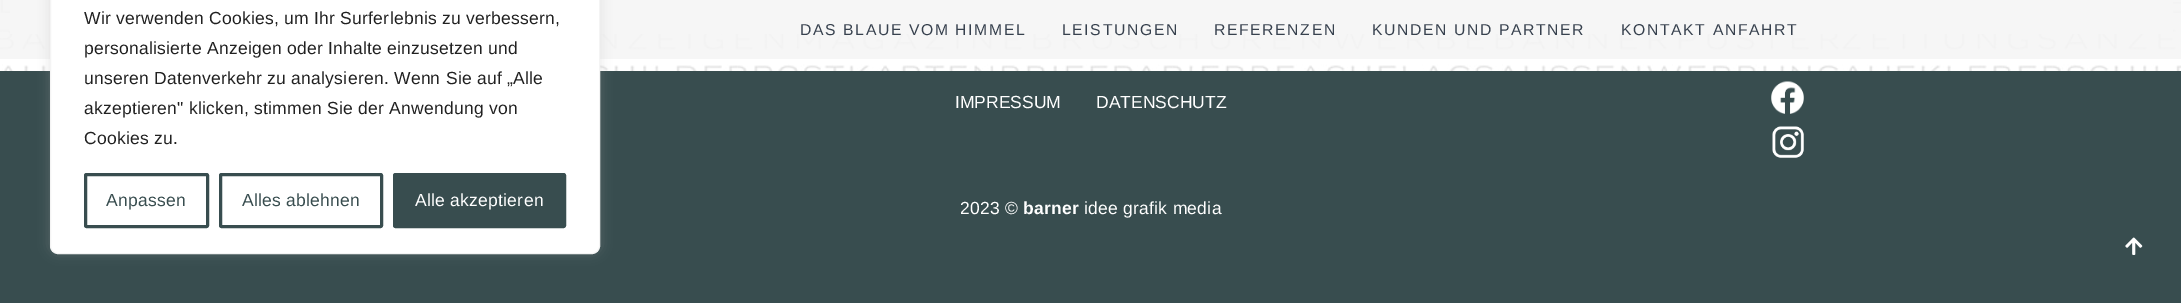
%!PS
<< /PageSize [2181 303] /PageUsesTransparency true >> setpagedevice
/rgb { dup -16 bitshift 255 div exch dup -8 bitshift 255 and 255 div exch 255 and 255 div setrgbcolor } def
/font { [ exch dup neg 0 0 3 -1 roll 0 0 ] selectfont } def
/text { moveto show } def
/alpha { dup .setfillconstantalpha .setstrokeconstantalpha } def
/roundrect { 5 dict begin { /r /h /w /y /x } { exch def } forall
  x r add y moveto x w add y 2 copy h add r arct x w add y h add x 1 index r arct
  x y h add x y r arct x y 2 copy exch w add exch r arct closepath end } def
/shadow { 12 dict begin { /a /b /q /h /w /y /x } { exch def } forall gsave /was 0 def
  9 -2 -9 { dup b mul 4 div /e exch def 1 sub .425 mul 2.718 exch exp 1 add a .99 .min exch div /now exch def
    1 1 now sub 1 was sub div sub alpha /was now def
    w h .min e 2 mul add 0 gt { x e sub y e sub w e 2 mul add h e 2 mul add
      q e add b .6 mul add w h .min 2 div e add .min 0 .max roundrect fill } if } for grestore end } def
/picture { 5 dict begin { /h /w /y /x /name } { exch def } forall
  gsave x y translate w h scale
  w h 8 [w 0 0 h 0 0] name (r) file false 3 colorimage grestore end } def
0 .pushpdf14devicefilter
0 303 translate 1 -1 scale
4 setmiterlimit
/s1 { /LiberationSans-Regular 17.5 font 16#FFFFFF rgb } def
16#FFFFFF rgb
0 0 2181 303 rectfill
(pic1.raw) 0 0 2181 71 picture
10 0 2163 34 rectfill
0.85 alpha
16#F5F5F5 rgb
0 0 2181 59 rectfill
1 alpha
16#384D4F rgb
0 71 2181 232 rectfill
16#ACABAB rgb
50 -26 550 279 8 6 0.3 shadow
16#FFFFFF rgb
50.5 -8.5 549 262 7.5 roundrect gsave fill grestore
16#F4F4F4 rgb
stroke
/LiberationSans-Regular 17.5 font
16#212121 rgb
84 24 moveto 0.25 0 (Wir verwenden Cookies, um Ihr Surferlebnis zu verbessern,) ashow
84 54 moveto 0.25 0 (personalisierte Anzeigen oder Inhalte einzusetzen und) ashow
84 84 moveto 0.25 0 (unseren Datenverkehr zu analysieren. Wenn Sie auf „Alle) ashow
84 114 moveto 0.25 0 (akzeptieren" klicken, stimmen Sie der Anwendung von) ashow
84 144 moveto 0.25 0 (Cookies zu.) ashow
16#384D4F rgb
3 setlinewidth
85.5 174.5 122 52 1 roundrect stroke
106 206 moveto 0.25 0 (Anpassen) ashow
220.5 174.5 161 52 1 roundrect stroke
242 206 moveto 0.25 0 (Alles ablehnen) ashow
394.5 174.5 170 52 1 roundrect gsave fill grestore
stroke
16#FFFFFF rgb
415 206 moveto 0.25 0 (Alle akzeptieren) ashow
/LiberationSans-Regular 15.75 font
16#37414E rgb
800 35 moveto 1.6 0 (DAS BLAUE VOM HIMMEL) ashow
1062 35 moveto 1.6 0 (LEISTUNGEN) ashow
1214 35 moveto 1.6 0 (REFERENZEN) ashow
1372 35 moveto 1.6 0 (KUNDEN UND PARTNER) ashow
1621 35 moveto 1.6 0 (KONTAKT ANFAHRT) ashow
s1
(IMPRESSUM) 955 108 text
(DATENSCHUTZ) 1096 108 text
(pic2.raw) 1771 81 33 33 picture
(pic3.raw) 1772 126 32 32 picture
960 214 moveto 0.25 0 (2023 ©) ashow
/LiberationSans-Bold 17.5 font
1023 214 moveto 0.25 0 (barner) ashow
/LiberationSans-Regular 17.5 font
1084 214 moveto 0.25 0 (idee grafik media) ashow
(pic4.raw) 2125 237 18 18 picture
.poppdf14devicefilter showpage
